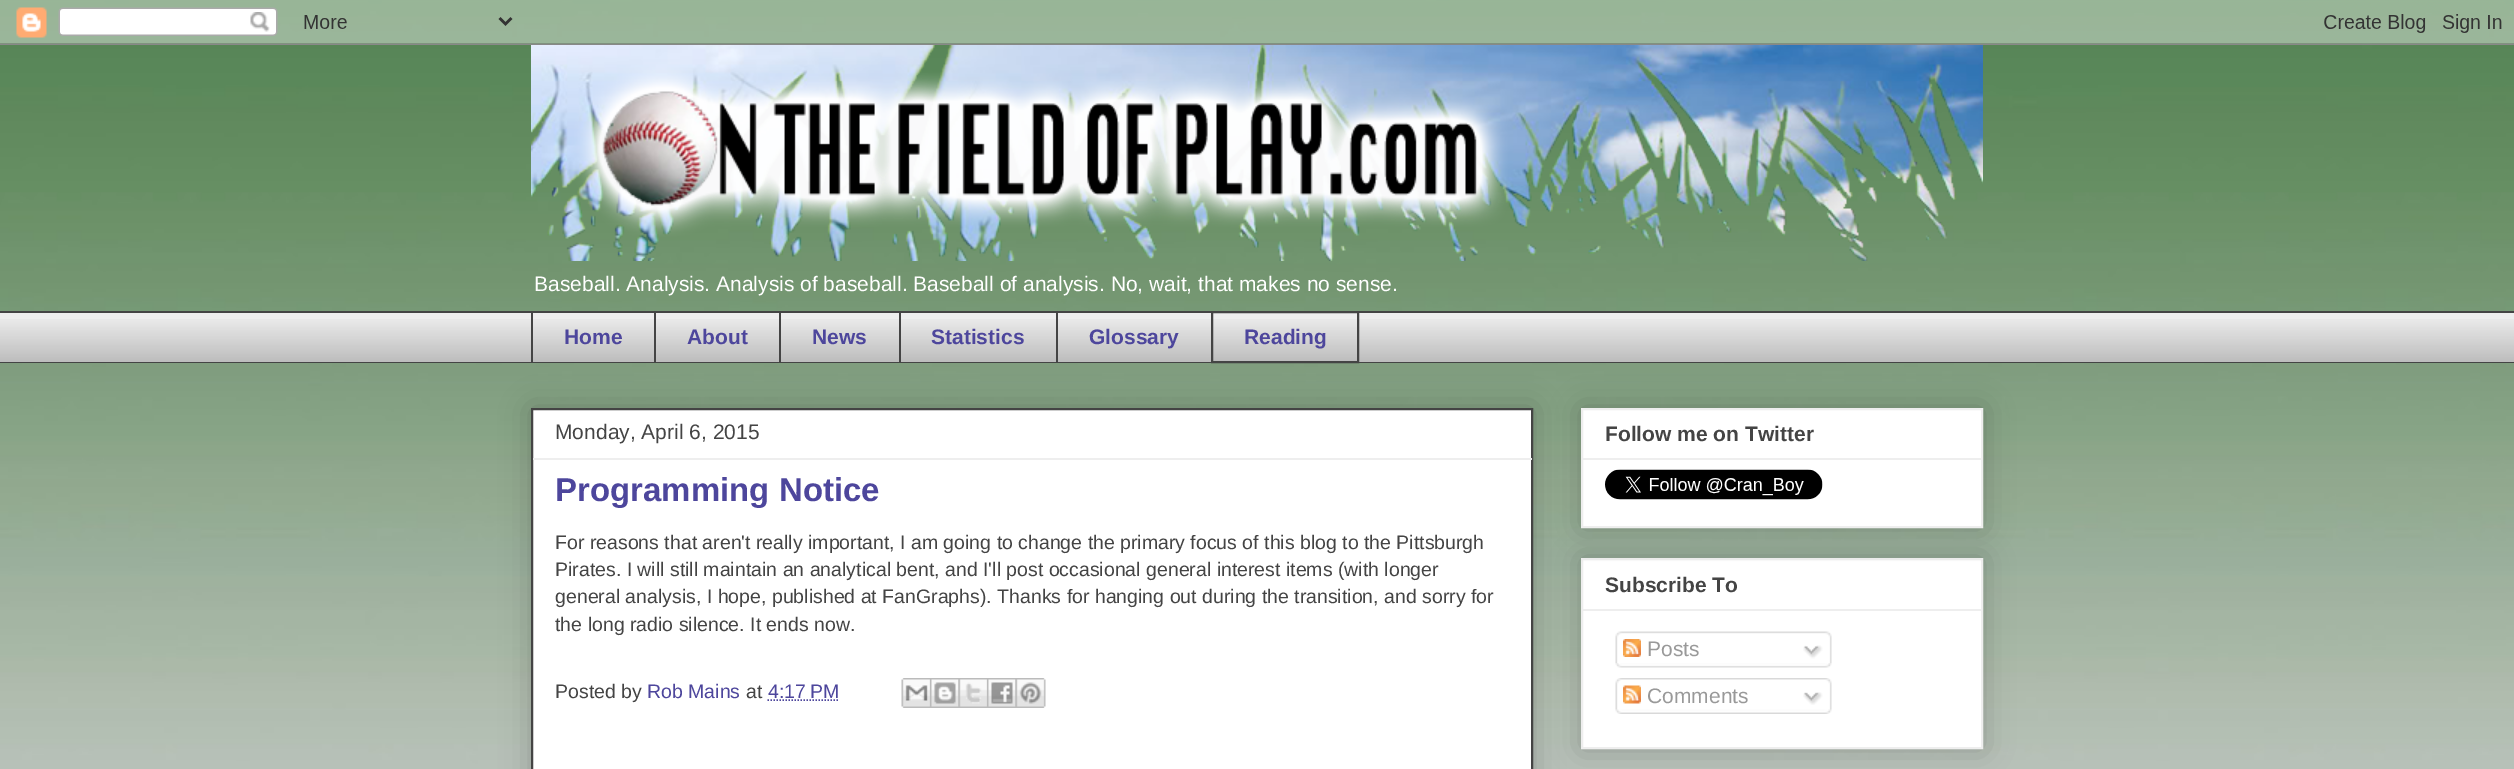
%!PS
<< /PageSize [2514 769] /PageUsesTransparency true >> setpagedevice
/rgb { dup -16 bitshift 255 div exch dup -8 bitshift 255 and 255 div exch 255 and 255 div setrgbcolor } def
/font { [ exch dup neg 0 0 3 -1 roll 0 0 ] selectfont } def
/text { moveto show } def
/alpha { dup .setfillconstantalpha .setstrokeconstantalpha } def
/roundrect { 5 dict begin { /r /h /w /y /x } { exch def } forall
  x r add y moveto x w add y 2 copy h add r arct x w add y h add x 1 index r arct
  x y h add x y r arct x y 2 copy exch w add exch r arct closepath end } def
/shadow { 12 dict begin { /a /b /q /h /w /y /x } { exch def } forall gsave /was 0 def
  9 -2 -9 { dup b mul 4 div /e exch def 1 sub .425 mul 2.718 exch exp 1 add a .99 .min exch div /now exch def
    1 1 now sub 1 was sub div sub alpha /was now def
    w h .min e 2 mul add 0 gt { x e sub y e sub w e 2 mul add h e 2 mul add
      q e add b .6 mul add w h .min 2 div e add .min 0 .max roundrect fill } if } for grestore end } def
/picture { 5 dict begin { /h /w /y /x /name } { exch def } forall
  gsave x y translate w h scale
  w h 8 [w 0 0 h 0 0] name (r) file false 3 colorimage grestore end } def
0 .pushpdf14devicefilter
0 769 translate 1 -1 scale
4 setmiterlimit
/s1 { /LiberationSans-Regular 21 font 16#FFFFFF rgb } def
/s2 { /LiberationSans-Bold 21 font 16#4D469C rgb } def
/s3 { /LiberationSans-Regular 21 font 16#444444 rgb } def
/s4 { /LiberationSans-Bold 33 font 16#4D469C rgb } def
/s5 { /LiberationSans-Regular 19.5 font 16#444444 rgb } def
/s6 { /LiberationSans-Regular 19.5 font 16#4D469C rgb } def
/s7 { /LiberationSans-Bold 21 font 16#444444 rgb } def
/s8 { /LiberationSans-Regular 21 font 16#999999 rgb } def
16#FFFFFF rgb
0 0 2514 769 rectfill
(pic1.raw) 0 0 2514 769 picture
(pic2.raw) 0 0 2514 45 picture
(pic3.raw) 531 45 1452 216 picture
s1
(Baseball. Analysis. Analysis of baseball. Baseball of analysis. No, wait, that makes no sense.) 534 291 text
16#EEEEEE rgb
0 313 2514 49 rectfill
(pic4.raw) 0 319 2514 43 picture
16#444444 rgb
0 311 2514 2 rectfill
531 311 2 52 rectfill
s2
(Home) 564 344 text
16#444444 rgb
654 311 2 52 rectfill
s2
(About) 687 344 text
16#444444 rgb
779 311 2 52 rectfill
s2
(News) 812 344 text
16#444444 rgb
899 311 2 52 rectfill
s2
(Statistics) 931 344 text
16#444444 rgb
1056 311 2 52 rectfill
s2
(Glossary) 1089 344 text
16#444444 rgb
2 setlinewidth
1212 312 146 50 rectstroke
s2
(Reading) 1244 344 text
16#444444 rgb
0 362 2514 1 rectfill
16#000000 rgb
531 408 1002 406 0 15 0.2 shadow
16#FFFFFF rgb
532 409 moveto 1532 409 lineto 1532 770 lineto 532 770 lineto closepath gsave fill grestore
16#444444 rgb
stroke
s3
(Monday, April 6, 2015) 555 439 text
16#EEEEEE rgb
533 458 999 2 rectfill
s4
(Programming Notice) 555 501 text
s5
(For reasons that aren't really important, I am going to change the primary focus of this blog to the Pittsburgh) 555 549 text
(Pirates. I will still maintain an analytical bent, and I'll post occasional general interest items \(with longer) 555 576 text
(general analysis, I hope, published at FanGraphs\). Thanks for hanging out during the transition, and sorry for) 555 603 text
(the long radio silence. It ends now.) 555 631 text
(Posted by) 555 698 text
s6
(Rob Mains) 647 698 text
s5
(at) 746 698 text
s6
(4:17 PM) 768 698 text
1.5 setlinewidth
[1.5 1.5] 0 setdash
767.5 700 moveto 838.5 700 lineto stroke
(pic5.raw) 901 678 29 30 picture
(pic6.raw) 930 678 29 30 picture
(pic7.raw) 958 678 29 30 picture
(pic8.raw) 987 678 29 30 picture
(pic9.raw) 1015 678 31 30 picture
16#000000 rgb
1581 558 402 191 0 15 0.2 shadow
16#FFFFFF rgb
1582 559 moveto 1982 559 lineto 1982 748 lineto 1582 748 lineto closepath gsave fill grestore
16#EEEEEE rgb
2 setlinewidth
[] 0 setdash
stroke
16#000000 rgb
1581 408 402 120 0 15 0.2 shadow
16#FFFFFF rgb
1582 409 moveto 1982 409 lineto 1982 527 lineto 1582 527 lineto closepath gsave fill grestore
16#EEEEEE rgb
stroke
s7
(Follow me on Twitter) 1605 441 text
16#EEEEEE rgb
1583 458 399 2 rectfill
(pic10.raw) 1605 469 218 31 picture
s7
(Subscribe To) 1605 592 text
16#EEEEEE rgb
1583 609 399 2 rectfill
(pic11.raw) 1615 631 217 32 picture
(pic12.raw) 1623 639 18 18 picture
s8
(Posts) 1647 656 text
(pic13.raw) 1803 645 20 14 picture
(pic14.raw) 1615 663 217 5 picture
(pic15.raw) 1615 678 217 32 picture
(pic16.raw) 1623 685 18 19 picture
(Comments) 1647 703 text
(pic17.raw) 1803 692 20 13 picture
(pic18.raw) 1615 709 217 5 picture
.poppdf14devicefilter showpage
